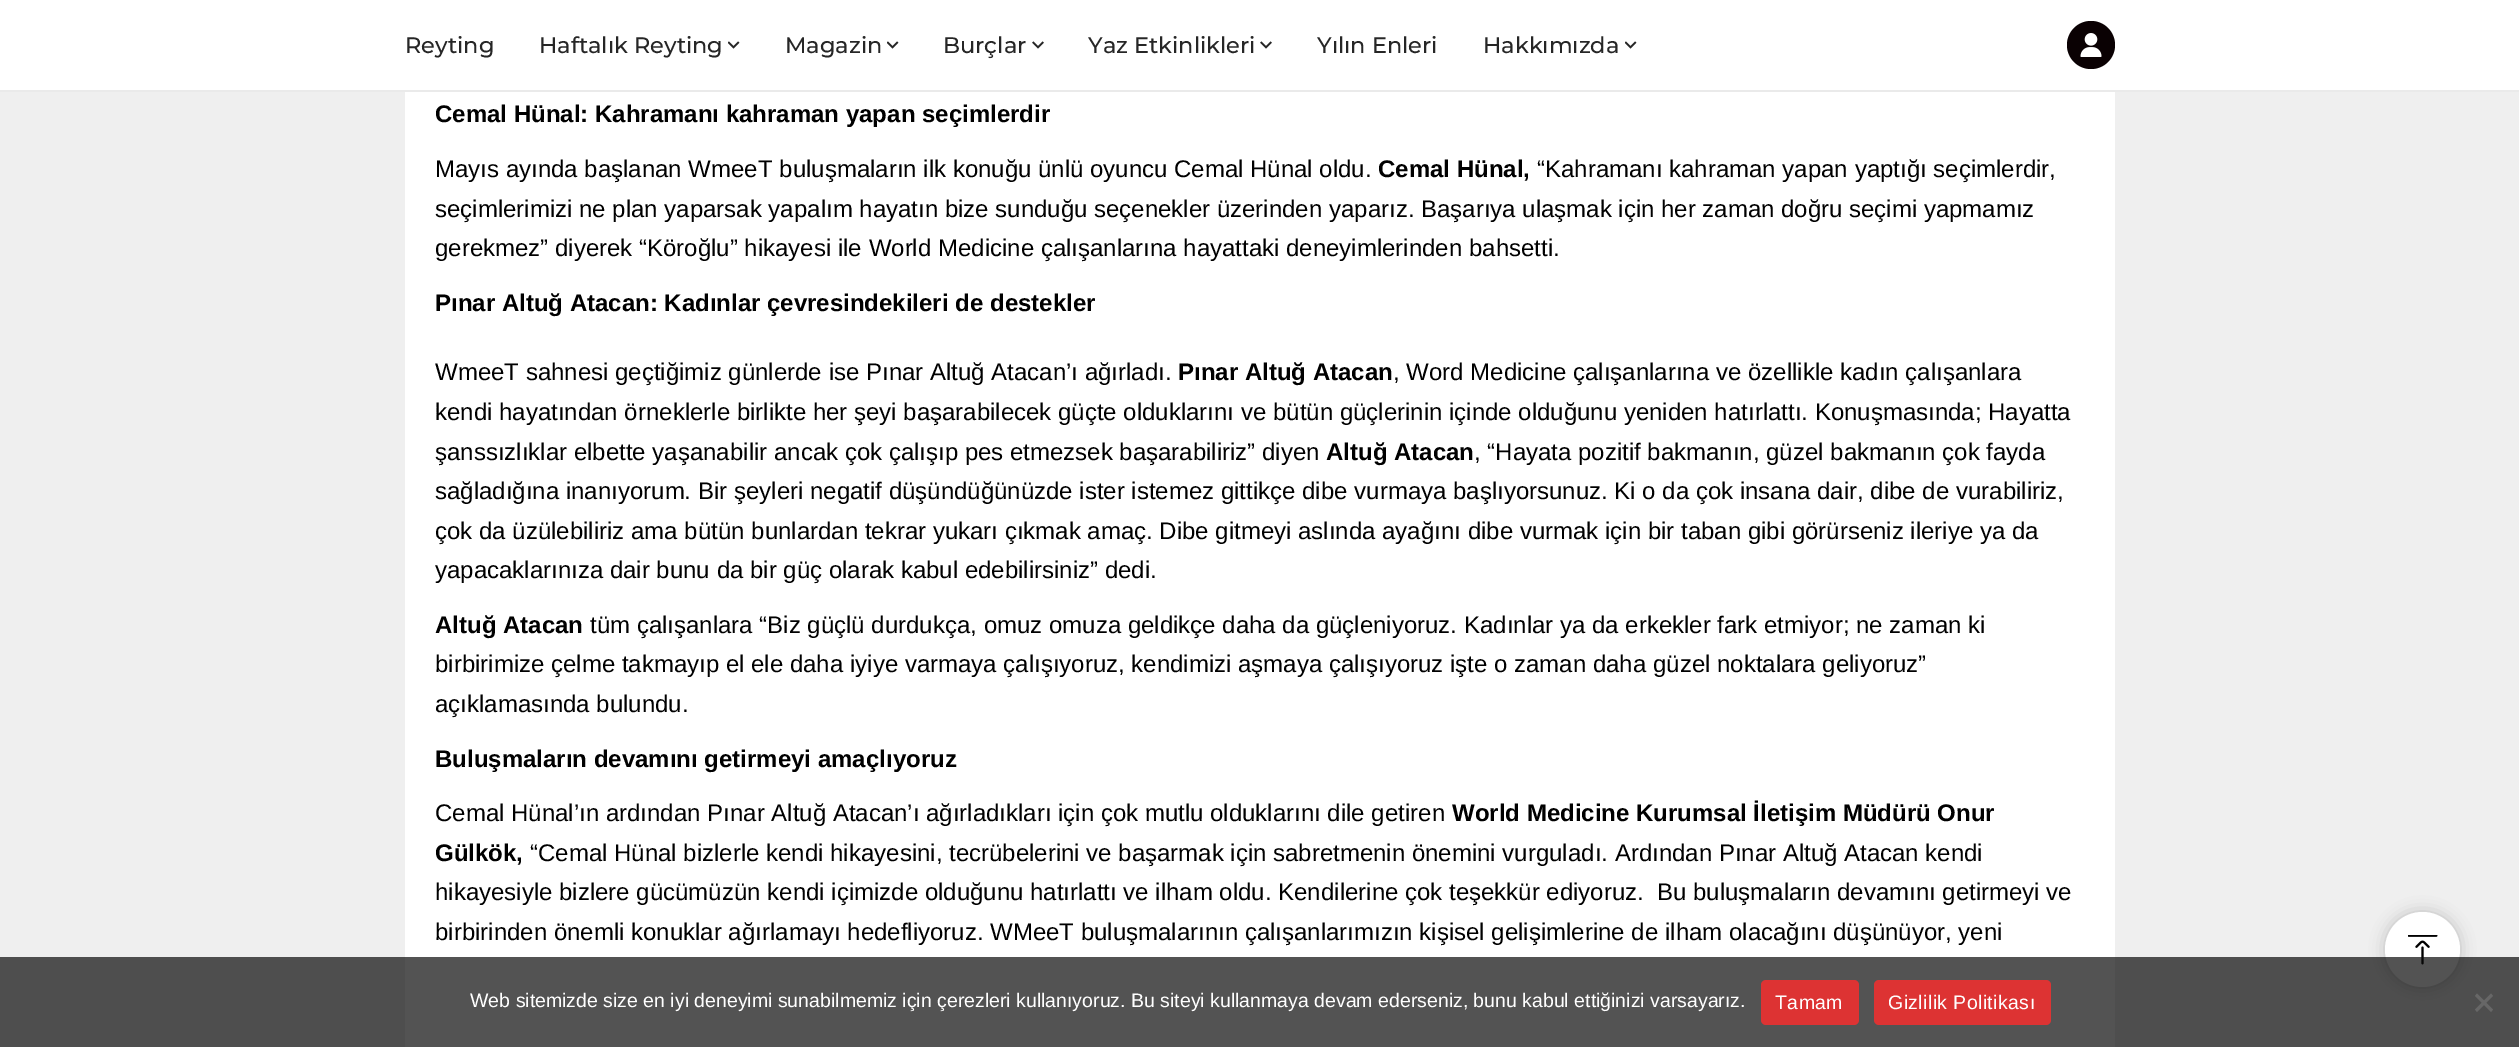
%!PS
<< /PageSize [2519 1047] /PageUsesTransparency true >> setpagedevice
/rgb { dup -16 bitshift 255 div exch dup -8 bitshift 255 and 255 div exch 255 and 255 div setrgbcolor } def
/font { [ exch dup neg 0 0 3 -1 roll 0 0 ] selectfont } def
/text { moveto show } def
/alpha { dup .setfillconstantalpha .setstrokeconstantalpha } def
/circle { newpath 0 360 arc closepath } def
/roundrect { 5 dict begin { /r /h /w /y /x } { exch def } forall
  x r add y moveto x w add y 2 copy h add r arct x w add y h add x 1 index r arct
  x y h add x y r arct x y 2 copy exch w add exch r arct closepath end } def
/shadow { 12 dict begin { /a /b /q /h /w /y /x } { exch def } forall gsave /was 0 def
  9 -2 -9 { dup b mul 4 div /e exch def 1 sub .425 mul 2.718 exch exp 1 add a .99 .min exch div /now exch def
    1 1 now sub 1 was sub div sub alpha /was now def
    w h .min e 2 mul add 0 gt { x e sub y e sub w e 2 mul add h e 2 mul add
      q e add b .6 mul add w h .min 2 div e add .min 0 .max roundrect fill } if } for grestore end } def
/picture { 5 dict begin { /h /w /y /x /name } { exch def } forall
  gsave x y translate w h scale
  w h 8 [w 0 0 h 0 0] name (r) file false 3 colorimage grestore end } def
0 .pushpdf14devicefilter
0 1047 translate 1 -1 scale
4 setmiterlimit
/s1 { /Montserrat-Medium 22.5 font 16#262626 rgb } def
/s2 { /LiberationSans-Bold 24 font 16#000000 rgb } def
/s3 { /LiberationSans-Regular 24 font 16#000000 rgb } def
/s4 { /LiberationSans-Regular 19.5 font 16#FFFFFF rgb } def
16#EFEFEF rgb
0 0 2519 1047 rectfill
16#FFFFFF rgb
0 0 2519 90 rectfill
16#EAEAEA rgb
0 90 2519 2 rectfill
s1
(Reyting) 405 53 text
(Haftalık Reyting) 539 53 text
(pic1.raw) 728 41 12 8 picture
(Magazin) 785 53 text
(pic1.raw) 887 41 12 8 picture
(Burçlar) 943 53 text
(pic2.raw) 1032 41 12 8 picture
(Yaz Etkinlikleri) 1088 53 text
(pic2.raw) 1260 41 12 8 picture
(Yılın Enleri) 1317 53 text
(Hakkımızda) 1483 53 text
(pic1.raw) 1625 41 12 8 picture
16#0A0103 rgb
2091 45 24 circle fill
(pic3.raw) 2080 33 22 24 picture
16#FFFFFF rgb
405 92 1710 955 rectfill
s2
(Cemal Hünal: Kahramanı kahraman yapan seçimlerdir) 435 122 text
s3
(Mayıs ayında başlanan WmeeT buluşmaların ilk konuğu ünlü oyuncu Cemal Hünal oldu.) 435 177 text
s2
(Cemal Hünal,) 1378 177 text
s3
(“Kahramanı kahraman yapan yaptığı seçimlerdir,) 1537 177 text
(seçimlerimizi ne plan yaparsak yapalım hayatın bize sunduğu seçenekler üzerinden yaparız. Başarıya ulaşmak için her zaman doğru seçimi yapmamız) 435 217 text
(gerekmez” diyerek “Köroğlu” hikayesi ile World Medicine çalışanlarına hayattaki deneyimlerinden bahsetti.) 435 256 text
s2
(Pınar Altuğ Atacan: Kadınlar çevresindekileri de destekler) 435 311 text
s3
(WmeeT sahnesi geçtiğimiz günlerde ise Pınar Altuğ Atacan’ı ağırladı.) 435 380 text
s2
(Pınar Altuğ Atacan) 1178 380 text
s3
(, Word Medicine çalışanlarına ve özellikle kadın çalışanlara) 1393 380 text
(kendi hayatından örneklerle birlikte her şeyi başarabilecek güçte olduklarını ve bütün güçlerinin içinde olduğunu yeniden hatırlattı. Konuşmasında; Hayatta) 435 420 text
(şanssızlıklar elbette yaşanabilir ancak çok çalışıp pes etmezsek başarabiliriz” diyen) 435 460 text
s2
(Altuğ Atacan) 1326 460 text
s3
(, “Hayata pozitif bakmanın, güzel bakmanın çok fayda) 1474 460 text
(sağladığına inanıyorum. Bir şeyleri negatif düşündüğünüzde ister istemez gittikçe dibe vurmaya başlıyorsunuz. Ki o da çok insana dair, dibe de vurabiliriz,) 435 499 text
(çok da üzülebiliriz ama bütün bunlardan tekrar yukarı çıkmak amaç. Dibe gitmeyi aslında ayağını dibe vurmak için bir taban gibi görürseniz ileriye ya da) 435 539 text
(yapacaklarınıza dair bunu da bir güç olarak kabul edebilirsiniz” dedi.) 435 578 text
s2
(Altuğ Atacan) 435 633 text
s3
(tüm çalışanlara “Biz güçlü durdukça, omuz omuza geldikçe daha da güçleniyoruz. Kadınlar ya da erkekler fark etmiyor; ne zaman ki) 590 633 text
(birbirimize çelme takmayıp el ele daha iyiye varmaya çalışıyoruz, kendimizi aşmaya çalışıyoruz işte o zaman daha güzel noktalara geliyoruz”) 435 672 text
(açıklamasında bulundu.) 435 712 text
s2
(Buluşmaların devamını getirmeyi amaçlıyoruz) 435 767 text
s3
(Cemal Hünal’ın ardından Pınar Altuğ Atacan’ı ağırladıkları için çok mutlu olduklarını dile getiren) 435 821 text
s2
(World Medicine Kurumsal İletişim Müdürü Onur) 1452 821 text
(Gülkök,) 435 861 text
s3
(“Cemal Hünal bizlerle kendi hikayesini, tecrübelerini ve başarmak için sabretmenin önemini vurguladı. Ardından Pınar Altuğ Atacan kendi) 530 861 text
(hikayesiyle bizlere gücümüzün kendi içimizde olduğunu hatırlattı ve ilham oldu. Kendilerine çok teşekkür ediyoruz.  Bu buluşmaların devamını getirmeyi ve) 435 900 text
(birbirinden önemli konuklar ağırlamayı hedefliyoruz. WMeeT buluşmalarının çalışanlarımızın kişisel gelişimlerine de ilham olacağını düşünüyor, yeni) 435 940 text
2385 912 75 75 37.5 7.5 0.2 shadow
16#FFFFFF rgb
2422.5 949.5 37.5 circle fill
(pic4.raw) 2408 935 30 30 picture
0.7 alpha
16#0A0A0A rgb
0 957 2519 90 rectfill
1 alpha
s4
(Web sitemizde size en iyi deneyimi sunabilmemiz için çerezleri kullanıyoruz. Bu siteyi kullanmaya devam ederseniz, bunu kabul ettiğinizi varsayarız.) 470 1007 text
16#DD3333 rgb
1761 980 98 45 5 roundrect fill
16#FFFFFF rgb
1775 1009 moveto 0.4 0 (Tamam) ashow
16#DD3333 rgb
1874 980 177 45 5 roundrect fill
16#FFFFFF rgb
1888 1009 moveto 0.4 0 (Gizlilik Politikası) ashow
16#676767 rgb
2491 993.5 moveto 2493 996 lineto 2477 1012 lineto 2475 1009.5 lineto closepath fill
2475 996 moveto 2477 993.5 lineto 2493 1009.5 lineto 2491 1012 lineto closepath fill
.poppdf14devicefilter showpage
